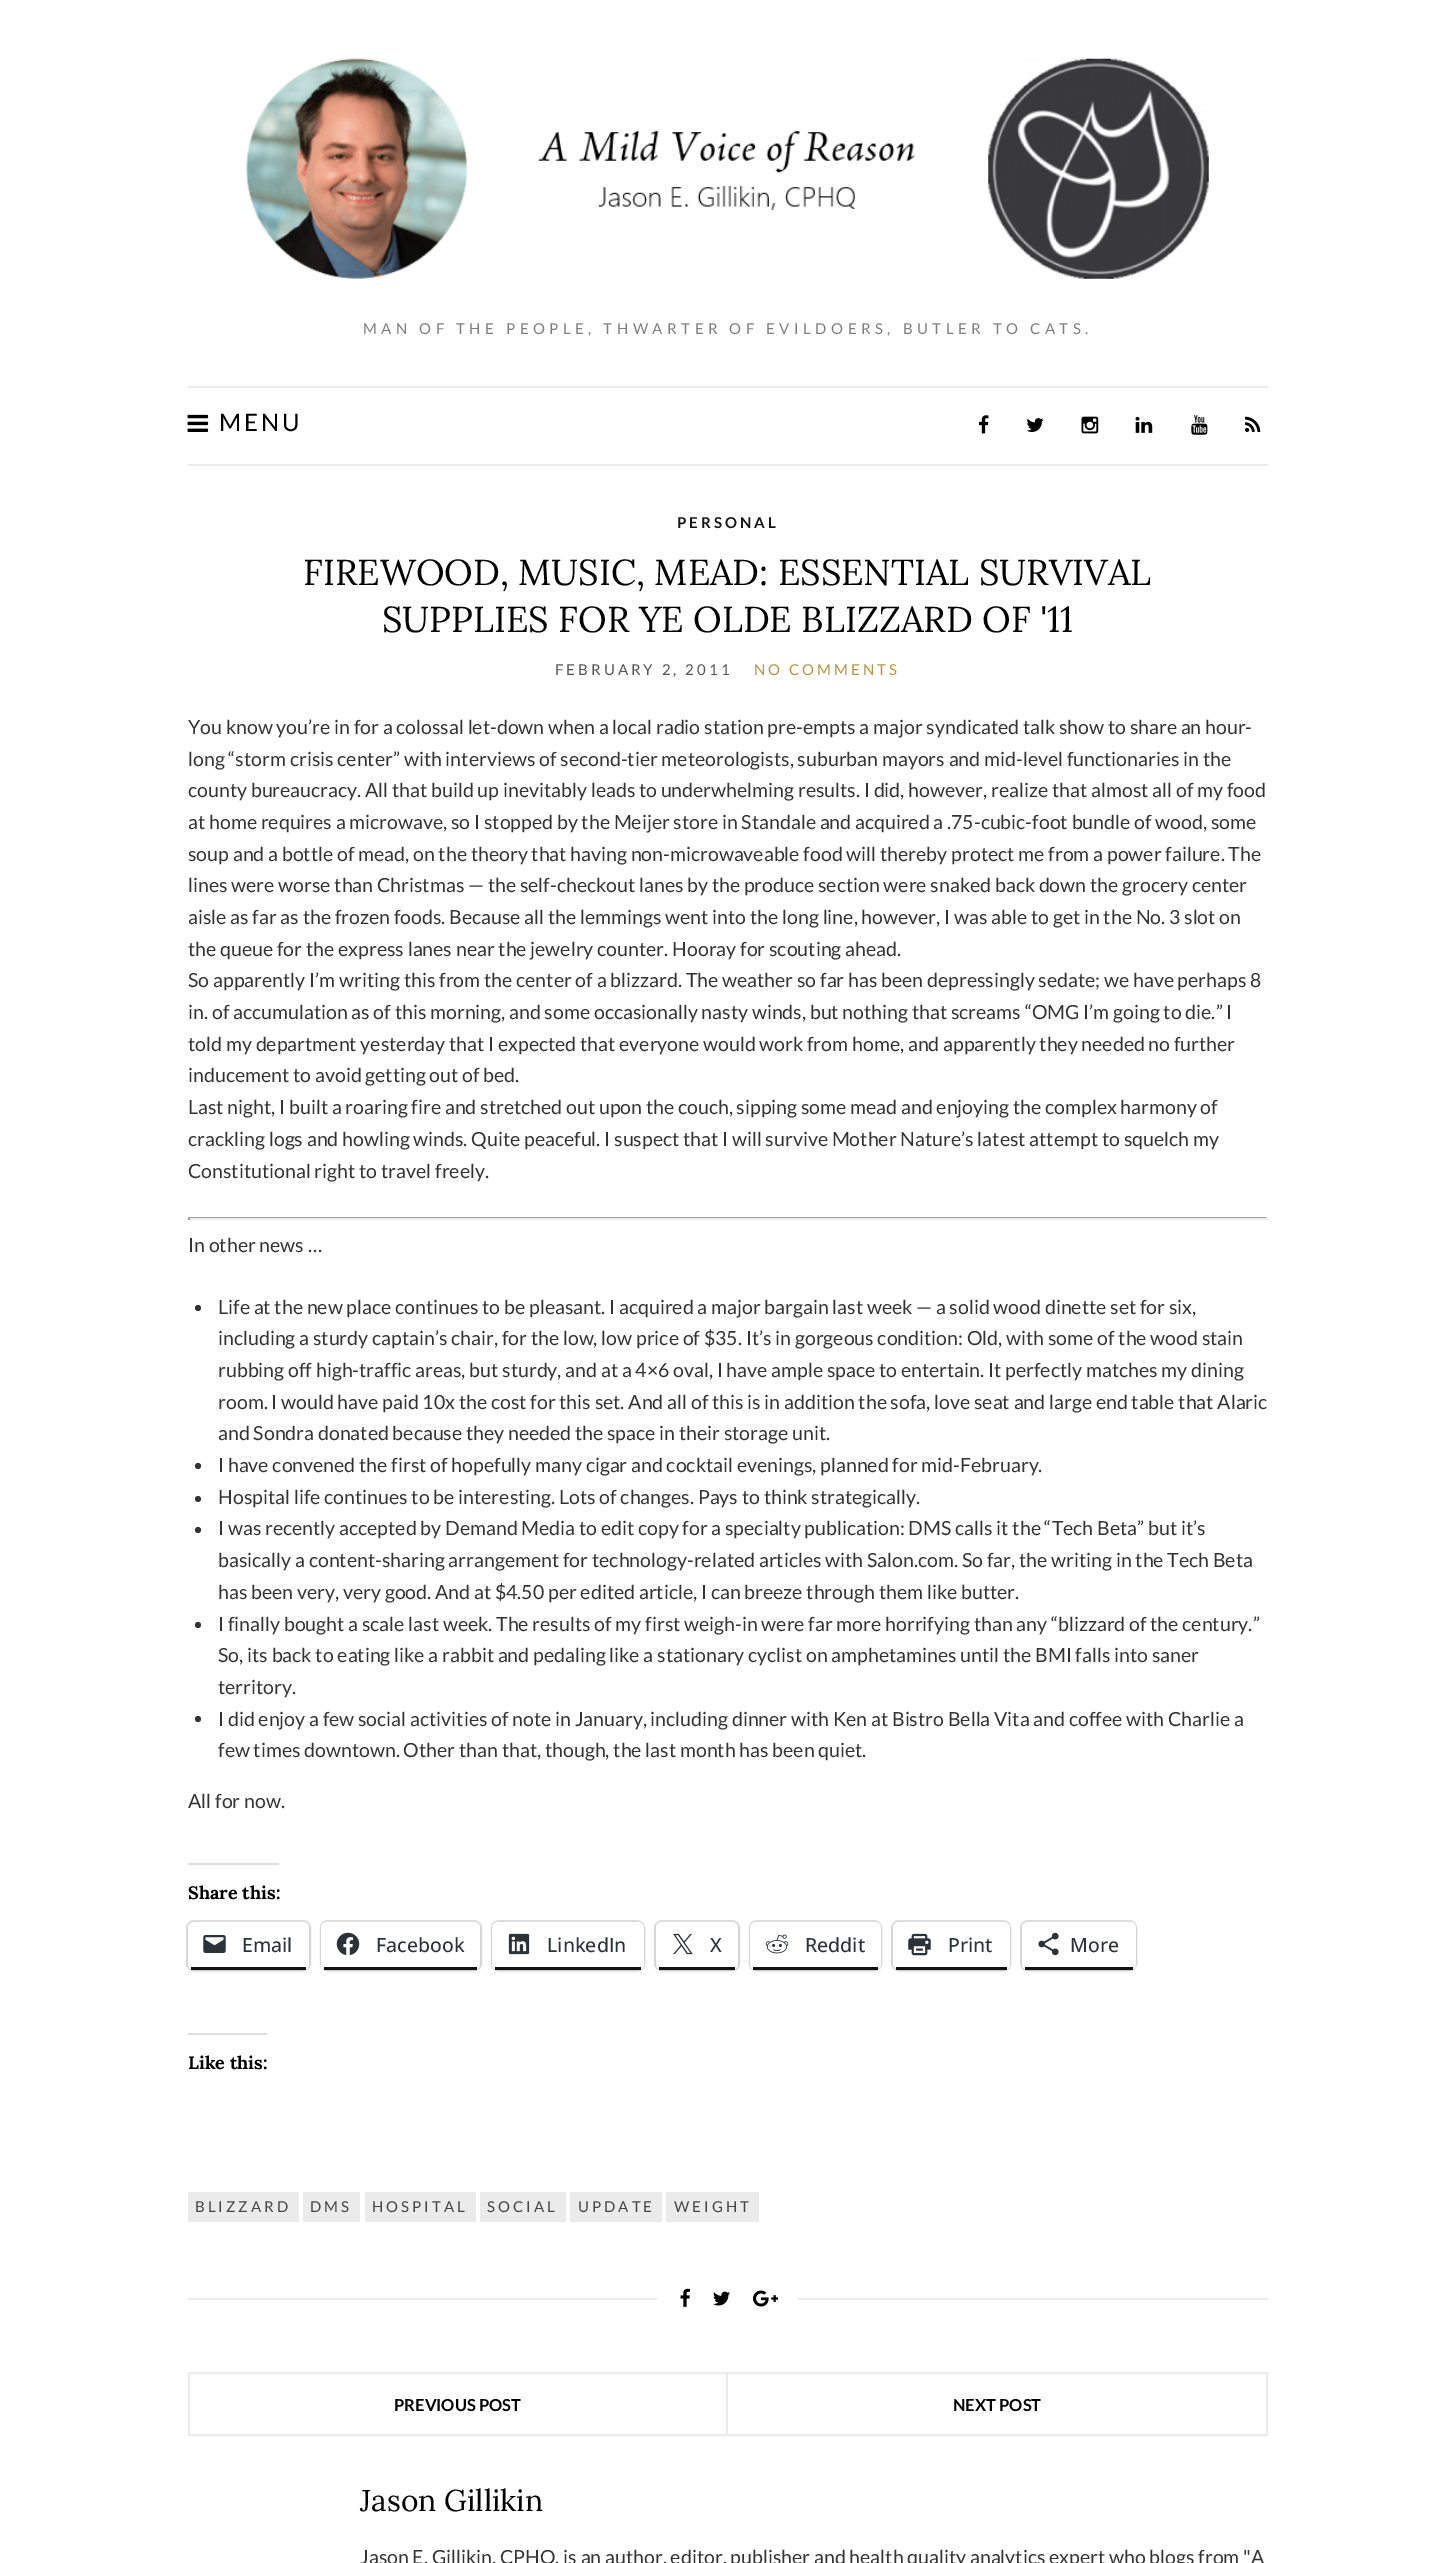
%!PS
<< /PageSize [1455 2563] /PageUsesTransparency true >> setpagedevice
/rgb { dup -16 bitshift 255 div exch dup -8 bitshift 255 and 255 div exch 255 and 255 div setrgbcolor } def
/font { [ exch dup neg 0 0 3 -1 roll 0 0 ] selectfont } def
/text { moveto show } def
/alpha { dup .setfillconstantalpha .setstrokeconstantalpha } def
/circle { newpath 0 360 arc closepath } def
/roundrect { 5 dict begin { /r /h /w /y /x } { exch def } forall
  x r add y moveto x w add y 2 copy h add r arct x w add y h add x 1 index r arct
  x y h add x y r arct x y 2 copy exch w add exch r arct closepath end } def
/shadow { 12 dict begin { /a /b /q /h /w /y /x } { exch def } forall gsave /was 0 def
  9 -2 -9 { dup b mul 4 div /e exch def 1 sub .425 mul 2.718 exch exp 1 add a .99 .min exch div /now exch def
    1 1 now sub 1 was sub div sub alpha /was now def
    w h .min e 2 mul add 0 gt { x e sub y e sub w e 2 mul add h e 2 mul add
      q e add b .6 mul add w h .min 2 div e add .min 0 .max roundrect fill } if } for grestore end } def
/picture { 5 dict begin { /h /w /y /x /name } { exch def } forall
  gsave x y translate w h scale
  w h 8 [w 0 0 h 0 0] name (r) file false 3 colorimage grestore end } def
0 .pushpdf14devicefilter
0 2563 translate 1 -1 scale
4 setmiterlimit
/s1 { /Lora-Regular 36 font 16#000000 rgb } def
/s2 { /Lato-Regular 19.5 font 16#333333 rgb } def
/s3 { /Lora-Bold 18 font 16#000000 rgb } def
/s4 { /OpenSans-Medium 19.5 font 16#2C3338 rgb } def
/s5 { /Lato-Bold 16.5 font 16#000000 rgb } def
/s6 { /Lora-Regular 30 font 16#000000 rgb } def
16#FFFFFF rgb
0 0 1455 2563 rectfill
(pic1.raw) 246 58 963 221 picture
/Lato-Regular 15 font
16#7E7E7E rgb
363 334 moveto 4.5 0 (MAN OF THE PEOPLE, THWARTER OF EVILDOERS, BUTLER TO CATS.) ashow
16#EBEBEB rgb
188 386 1080 2 rectfill
188 464 1080 2 rectfill
(pic2.raw) 187 414 22 18 picture
/Lato-Regular 24 font
16#000000 rgb
219 431 moveto 3 0 (MENU) ashow
(pic3.raw) 979 415 10 19 picture
(pic4.raw) 1026 418 18 14 picture
(pic5.raw) 1081 416 18 18 picture
(pic6.raw) 1135 416 18 17 picture
(pic7.raw) 1191 415 17 20 picture
(pic8.raw) 1245 416 16 16 picture
/Lato-Bold 15 font
16#161616 rgb
677 528 moveto 3 0 (PERSONAL) ashow
s1
(FIREWOOD, MUSIC, MEAD: ESSENTIAL SURVIVAL) 303 585 text
(SUPPLIES FOR YE OLDE BLIZZARD OF '11) 382 632 text
/Lato-Regular 15 font
16#545454 rgb
555 675 moveto 3 0 (FEBRUARY 2, 2011) ashow
16#B49543 rgb
754 675 moveto 3 0 (NO COMMENTS) ashow
s2
(You know you’re in for a colossal let-down when a local radio station pre-empts a major syndicated talk show to share an hour-) 188 734 text
(long “storm crisis center” with interviews of second-tier meteorologists, suburban mayors and mid-level functionaries in the) 188 766 text
(county bureaucracy. All that build up inevitably leads to underwhelming results. I did, however, realize that almost all of my food) 188 797 text
(at home requires a microwave, so I stopped by the Meijer store in Standale and acquired a .75-cubic-foot bundle of wood, some) 188 829 text
(soup and a bottle of mead, on the theory that having non-microwaveable food will thereby protect me from a power failure. The) 188 861 text
(lines were worse than Christmas — the self-checkout lanes by the produce section were snaked back down the grocery center) 188 892 text
(aisle as far as the frozen foods. Because all the lemmings went into the long line, however, I was able to get in the No. 3 slot on) 188 924 text
(the queue for the express lanes near the jewelry counter. Hooray for scouting ahead.) 188 956 text
(So apparently I’m writing this from the center of a blizzard. The weather so far has been depressingly sedate; we have perhaps 8) 188 987 text
(in. of accumulation as of this morning, and some occasionally nasty winds, but nothing that screams “OMG I’m going to die.” I) 188 1019 text
(told my department yesterday that I expected that everyone would work from home, and apparently they needed no further) 188 1051 text
(inducement to avoid getting out of bed.) 188 1082 text
(Last night, I built a roaring fire and stretched out upon the couch, sipping some mead and enjoying the complex harmony of) 188 1114 text
(crackling logs and howling winds. Quite peaceful. I suspect that I will survive Mother Nature’s latest attempt to squelch my) 188 1146 text
(Constitutional right to travel freely.) 188 1178 text
16#9F9F9F rgb
188 1217 1080 1 rectfill
16#EEEEEE rgb
1266 1217 2 3 rectfill
188 1218 1080 2 rectfill
16#9F9F9F rgb
188 1217 2 3 rectfill
s2
(In other news …) 188 1252 text
198 1308 3 circle fill
(Life at the new place continues to be pleasant. I acquired a major bargain last week — a solid wood dinette set for six,) 218 1314 text
(including a sturdy captain’s chair, for the low, low price of $35. It’s in gorgeous condition: Old, with some of the wood stain) 218 1345 text
(rubbing off high-traffic areas, but sturdy, and at a 4×6 oval, I have ample space to entertain. It perfectly matches my dining) 218 1377 text
(room. I would have paid 10x the cost for this set. And all of this is in addition the sofa, love seat and large end table that Alaric) 218 1409 text
(and Sondra donated because they needed the space in their storage unit.) 218 1440 text
198 1466 3 circle fill
(I have convened the first of hopefully many cigar and cocktail evenings, planned for mid-February.) 218 1472 text
198 1499 3 circle fill
(Hospital life continues to be interesting. Lots of changes. Pays to think strategically.) 218 1504 text
198 1530 3 circle fill
(I was recently accepted by Demand Media to edit copy for a specialty publication: DMS calls it the “Tech Beta” but it’s) 218 1535 text
(basically a content-sharing arrangement for technology-related articles with Salon.com. So far, the writing in the Tech Beta) 218 1567 text
(has been very, very good. And at $4.50 per edited article, I can breeze through them like butter.) 218 1599 text
198 1625 3 circle fill
(I finally bought a scale last week. The results of my first weigh-in were far more horrifying than any “blizzard of the century.”) 218 1631 text
(So, its back to eating like a rabbit and pedaling like a stationary cyclist on amphetamines until the BMI falls into saner) 218 1662 text
(territory.) 218 1694 text
198 1719 3 circle fill
(I did enjoy a few social activities of note in January, including dinner with Ken at Bistro Bella Vita and coffee with Charlie a) 218 1726 text
(few times downtown. Other than that, though, the last month has been quiet.) 218 1757 text
(All for now.) 188 1808 text
16#DCDCDE rgb
188 1863 91 2 rectfill
s3
(Share this:) 188 1899 text
16#E0E0E0 rgb
2 setlinewidth
187 1921 123 49 7 roundrect stroke
16#000000 rgb
188 1923 121 48 6 1.5 0.12 shadow
16#FFFFFF rgb
188 1922 121 48 6 roundrect fill
16#111111 rgb
191 1967 115 3 rectfill
(pic9.raw) 203 1935 23 18 picture
s4
(Email) 242 1952 text
16#E0E0E0 rgb
321 1921 160 49 7 roundrect stroke
16#000000 rgb
321 1923 159 48 6 1.5 0.12 shadow
16#FFFFFF rgb
321 1922 159 48 6 roundrect fill
16#111111 rgb
324 1967 153 3 rectfill
(pic10.raw) 336 1932 24 23 picture
s4
(Facebook) 376 1952 text
16#E0E0E0 rgb
492 1921 152 49 7 roundrect stroke
16#000000 rgb
492 1923 152 48 6 1.5 0.12 shadow
16#FFFFFF rgb
492 1922 152 48 6 roundrect fill
16#111111 rgb
495 1967 146 3 rectfill
(pic11.raw) 508 1933 22 22 picture
s4
(LinkedIn) 547 1952 text
16#E0E0E0 rgb
655 1921 84 49 7 roundrect stroke
16#000000 rgb
656 1923 82 48 6 1.5 0.12 shadow
16#FFFFFF rgb
656 1922 82 48 6 roundrect fill
16#111111 rgb
659 1967 76 3 rectfill
(pic12.raw) 673 1933 20 22 picture
s4
(X) 710 1952 text
16#E0E0E0 rgb
750 1921 131 49 7 roundrect stroke
16#000000 rgb
750 1923 131 48 6 1.5 0.12 shadow
16#FFFFFF rgb
750 1922 131 48 6 roundrect fill
16#111111 rgb
753 1967 125 3 rectfill
(pic13.raw) 765 1934 24 20 picture
s4
(Reddit) 805 1952 text
16#E0E0E0 rgb
892 1921 118 49 7 roundrect stroke
16#000000 rgb
893 1923 117 48 6 1.5 0.12 shadow
16#FFFFFF rgb
893 1922 117 48 6 roundrect fill
16#111111 rgb
896 1967 111 3 rectfill
(pic14.raw) 908 1933 23 23 picture
s4
(Print) 948 1952 text
16#E0E0E0 rgb
1021 1921 115 49 7 roundrect stroke
16#000000 rgb
1022 1923 114 48 6 1.5 0.12 shadow
16#FFFFFF rgb
1022 1922 114 48 6 roundrect fill
16#111111 rgb
1025 1967 108 3 rectfill
(pic15.raw) 1038 1932 21 24 picture
s4
(More) 1070 1952 text
16#DCDCDE rgb
188 2033 79 2 rectfill
s3
(Like this:) 188 2069 text
16#EBEBEB rgb
188 2192 111 30 rectfill
/Lato-Regular 15 font
16#444444 rgb
195 2212 moveto 3 0 (BLIZZARD) ashow
16#EBEBEB rgb
303 2192 57 30 rectfill
16#444444 rgb
310 2212 moveto 3 0 (DMS) ashow
16#EBEBEB rgb
365 2192 111 30 rectfill
16#444444 rgb
372 2212 moveto 3 0 (HOSPITAL) ashow
16#EBEBEB rgb
480 2192 86 30 rectfill
16#444444 rgb
487 2212 moveto 3 0 (SOCIAL) ashow
16#EBEBEB rgb
570 2192 92 30 rectfill
16#444444 rgb
578 2212 moveto 3 0 (UPDATE) ashow
16#EBEBEB rgb
666 2192 93 30 rectfill
16#444444 rgb
674 2212 moveto 3 0 (WEIGHT) ashow
16#EBEBEB rgb
188 2298 1080 2 rectfill
16#FFFFFF rgb
657 2298 141 2 rectfill
(pic16.raw) 680 2288 10 19 picture
(pic17.raw) 713 2291 17 15 picture
(pic18.raw) 753 2290 26 17 picture
16#EBEBEB rgb
189 2373 1078 62 rectstroke
726 2373 2 62 rectfill
s5
(PREVIOUS POST) 394 2411 text
(NEXT POST) 953 2411 text
s6
(Jason Gillikin) 360 2511 text
s2
(Jason E. Gillikin, CPHQ, is an author, editor, publisher and health quality analytics expert who blogs from "A) 360 2564 text
.poppdf14devicefilter showpage
